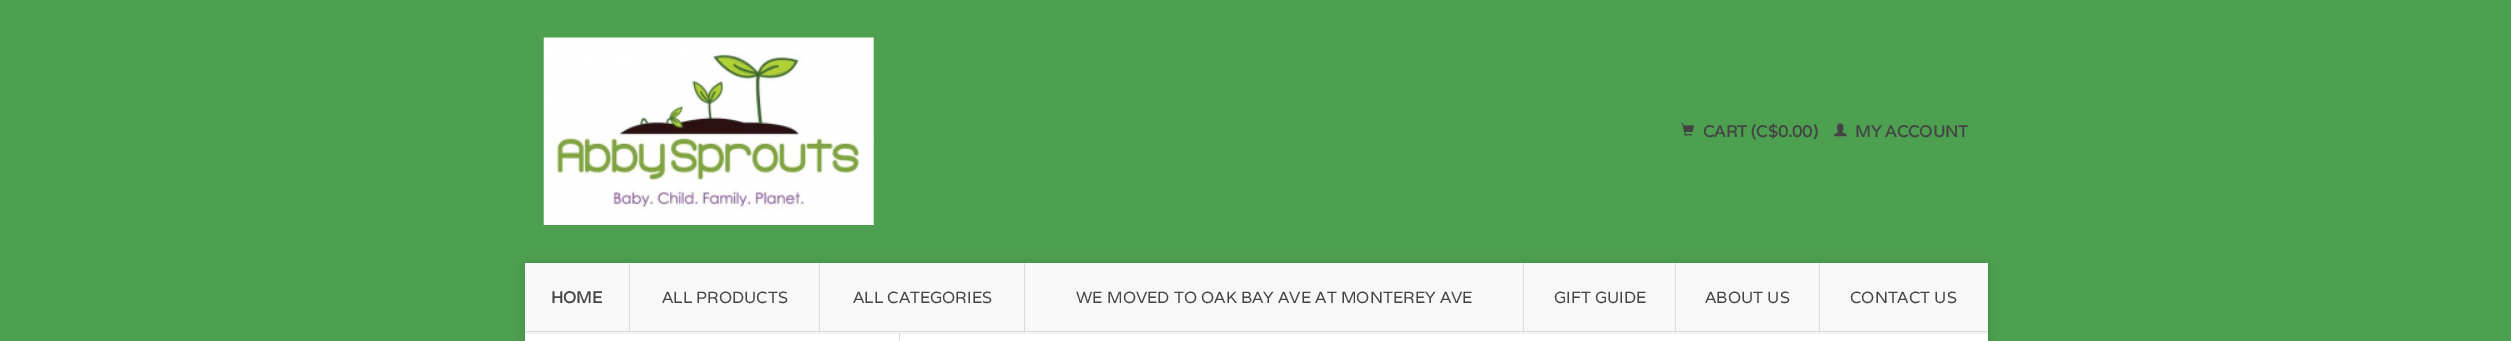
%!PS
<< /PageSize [2511 341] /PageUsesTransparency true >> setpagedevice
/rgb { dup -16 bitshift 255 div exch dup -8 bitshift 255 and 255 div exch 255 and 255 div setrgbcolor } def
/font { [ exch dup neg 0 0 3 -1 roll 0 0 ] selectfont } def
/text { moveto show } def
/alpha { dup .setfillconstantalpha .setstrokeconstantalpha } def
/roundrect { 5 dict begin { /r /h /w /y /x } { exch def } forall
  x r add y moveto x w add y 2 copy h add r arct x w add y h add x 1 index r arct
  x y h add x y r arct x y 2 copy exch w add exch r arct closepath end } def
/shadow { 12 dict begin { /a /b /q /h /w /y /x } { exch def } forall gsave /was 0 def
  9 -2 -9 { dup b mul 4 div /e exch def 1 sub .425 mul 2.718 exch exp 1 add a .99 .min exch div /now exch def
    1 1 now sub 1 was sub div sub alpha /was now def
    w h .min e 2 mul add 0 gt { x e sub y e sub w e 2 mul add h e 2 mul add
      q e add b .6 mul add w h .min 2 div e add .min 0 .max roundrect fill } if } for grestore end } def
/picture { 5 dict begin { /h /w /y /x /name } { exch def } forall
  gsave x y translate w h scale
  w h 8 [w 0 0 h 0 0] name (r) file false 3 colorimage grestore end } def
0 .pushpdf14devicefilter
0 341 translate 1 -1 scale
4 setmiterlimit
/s1 { /Varela-Bold 16.25 font 16#444444 rgb } def
/s2 { /Varela-Regular 16.25 font 16#444444 rgb } def
16#4DA04F rgb
0 0 2511 341 rectfill
(pic1.raw) 543 37 331 188 picture
(pic2.raw) 1681 123 13 14 picture
s1
(CART \(C$0.00\)) 1703 137 text
(pic3.raw) 1833 123 14 14 picture
(MY ACCOUNT) 1855 137 text
16#000000 rgb
525 263 1463 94 2.5 4.5 0.13 shadow
16#FFFFFF rgb
525 334 1463 7 rectfill
16#F5F5F5 rgb
525 332 moveto 525 334 lineto 1988 334 lineto 1988 264 lineto 1988 332 lineto closepath fill
16#DADADA rgb
525 331 1463 1 rectfill
16#F8F8F8 rgb
525 263 104 68 rectfill
16#DADADA rgb
629 263 1 68 rectfill
s1
(HOME) 551 303 text
16#F8F8F8 rgb
630 263 189 68 rectfill
16#DADADA rgb
819 263 1 68 rectfill
s2
(ALL PRODUCTS) 662 303 text
16#F8F8F8 rgb
820 263 204 68 rectfill
16#DADADA rgb
1024 263 1 68 rectfill
s2
(ALL CATEGORIES) 853 303 text
16#F8F8F8 rgb
1025 263 498 68 rectfill
16#DADADA rgb
1523 263 1 68 rectfill
s2
(WE MOVED TO OAK BAY AVE AT MONTEREY AVE) 1076 303 text
16#F8F8F8 rgb
1524 263 151 68 rectfill
16#DADADA rgb
1675 263 1 68 rectfill
s2
(GIFT GUIDE) 1554 303 text
16#F8F8F8 rgb
1676 263 143 68 rectfill
16#DADADA rgb
1819 263 1 68 rectfill
s2
(ABOUT US) 1705 303 text
16#F8F8F8 rgb
1820 263 168 68 rectfill
s2
(CONTACT US) 1850 303 text
16#DADADA rgb
899 333 1 8 rectfill
.poppdf14devicefilter showpage
